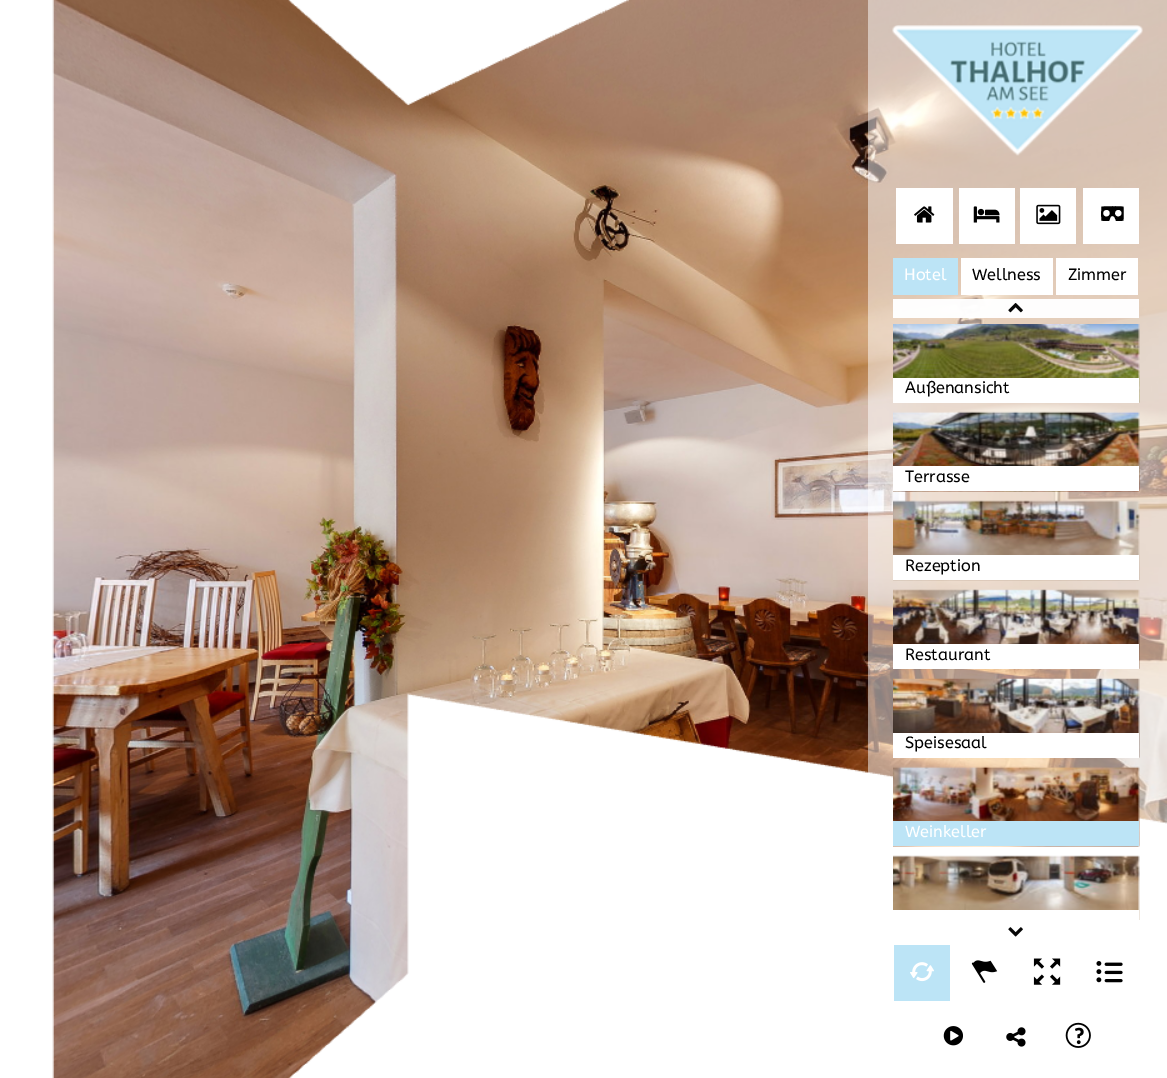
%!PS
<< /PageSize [1167 1078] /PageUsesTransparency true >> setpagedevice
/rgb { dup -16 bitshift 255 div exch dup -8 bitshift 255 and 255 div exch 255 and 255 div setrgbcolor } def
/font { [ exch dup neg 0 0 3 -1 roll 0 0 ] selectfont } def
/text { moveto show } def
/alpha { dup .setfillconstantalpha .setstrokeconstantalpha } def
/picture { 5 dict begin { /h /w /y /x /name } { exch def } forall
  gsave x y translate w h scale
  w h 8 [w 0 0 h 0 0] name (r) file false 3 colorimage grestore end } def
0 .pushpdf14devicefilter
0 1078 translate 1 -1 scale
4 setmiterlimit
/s1 { /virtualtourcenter-Regular 27 font 16#000000 rgb } def
/s2 { /ABeeZee-Regular 16.25 font 16#FFFFFF rgb } def
/s3 { /ABeeZee-Regular 16.25 font 16#000000 rgb } def
16#FFFFFF rgb
0 0 1167 1078 rectfill
(pic1.raw) 52 0 1115 1078 picture
0.5 alpha
868 0 299 824 rectfill
1 alpha
(pic2.raw) 892 25 251 131 picture
896 188 57 56 rectfill
(pic3.raw) 914 206 21 17 picture
959 188 56 56 rectfill
(pic4.raw) 973 206 27 17 picture
1020 188 56 56 rectfill
(pic5.raw) 1036 204 25 21 picture
1083 188 56 56 rectfill
s1
(\)) 1099 227 text
16#BCE4F6 rgb
893 258 65 37 rectfill
s2
(Hotel) 904 280 text
961 258 92 37 rectfill
s3
(Wellness) 972 280 text
16#FFFFFF rgb
1056 258 82 37 rectfill
s3
(Zimmer) 1068 280 text
0.97 alpha
16#FFFFFF rgb
893 299 246 19 rectfill
1 alpha
(pic6.raw) 1008 303 15 10 picture
(pic7.raw) 893 324 247 79 picture
893 378 246 25 rectfill
s3
(Außenansicht) 905 393 text
(pic8.raw) 893 411 247 81 picture
16#FFFFFF rgb
893 466 246 25 rectfill
s3
(Terrasse) 905 482 text
(pic9.raw) 893 500 247 81 picture
16#FFFFFF rgb
893 555 246 25 rectfill
s3
(Rezeption) 905 571 text
(pic10.raw) 893 589 247 80 picture
16#FFFFFF rgb
893 644 246 25 rectfill
s3
(Restaurant) 905 660 text
(pic11.raw) 893 678 247 80 picture
16#FFFFFF rgb
893 733 246 25 rectfill
s3
(Speisesaal) 905 748 text
(pic12.raw) 893 766 247 81 picture
16#BCE4F6 rgb
893 821 246 25 rectfill
s2
(Weinkeller) 905 837 text
(pic13.raw) 893 855 247 65 picture
893 910 246 10 rectfill
(pic14.raw) 1008 927 15 10 picture
16#BCE4F6 rgb
894 945 56 56 rectfill
(pic15.raw) 910 962 24 20 picture
(pic16.raw) 971 960 27 23 picture
(pic17.raw) 1033 958 28 27 picture
(pic18.raw) 1096 961 27 22 picture
(pic19.raw) 943 1026 20 20 picture
(pic20.raw) 1006 1027 20 20 picture
(pic21.raw) 1065 1022 26 26 picture
.poppdf14devicefilter showpage
